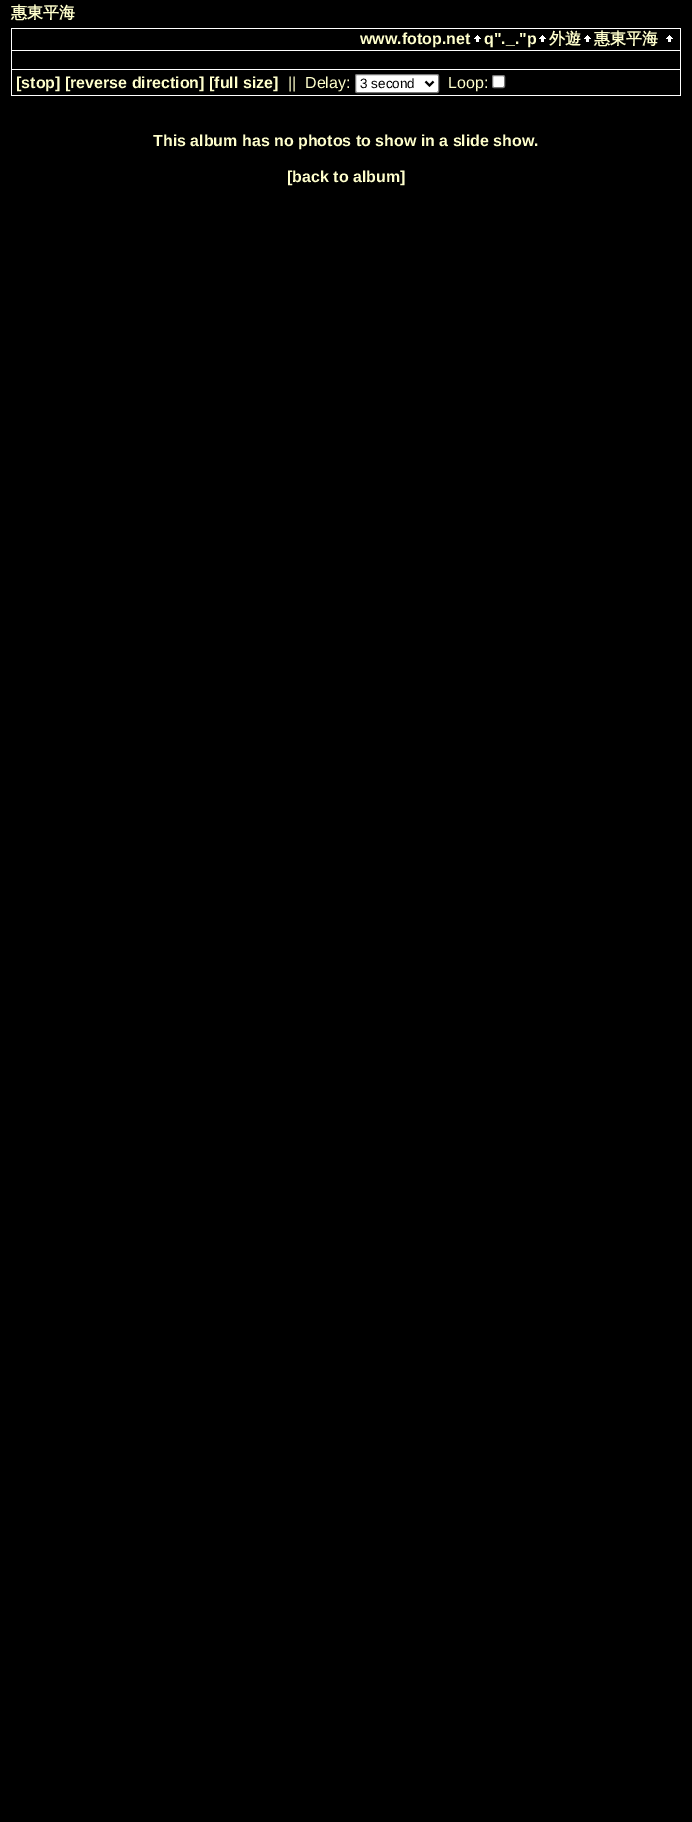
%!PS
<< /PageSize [692 1822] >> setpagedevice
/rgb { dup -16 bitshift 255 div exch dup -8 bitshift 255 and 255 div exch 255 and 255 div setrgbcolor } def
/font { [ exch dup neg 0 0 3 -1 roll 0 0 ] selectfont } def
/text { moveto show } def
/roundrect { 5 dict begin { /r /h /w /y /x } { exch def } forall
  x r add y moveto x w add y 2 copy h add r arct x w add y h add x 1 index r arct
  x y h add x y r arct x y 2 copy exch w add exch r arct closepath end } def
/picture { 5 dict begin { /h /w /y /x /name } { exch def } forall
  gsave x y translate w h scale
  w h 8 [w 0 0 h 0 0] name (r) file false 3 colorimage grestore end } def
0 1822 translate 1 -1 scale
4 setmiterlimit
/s1 { /WenQuanYiZenHei-Bold 16 font 16#FFFFCC rgb } def
/s2 { /LiberationSans-Bold 16 font 16#FFFFCC rgb } def
/s3 { /LiberationSans-Regular 16 font 16#FFFFCC rgb } def
/s4 { /LiberationSans-Regular 13.5 font 16#000000 rgb } def
16#000000 rgb
0 0 692 1822 rectfill
s1
(惠東平海) 11 18 text
16#FFFFFF rgb
11 28 670 1 rectfill
11 29 1 21 rectfill
s2
(www.fotop.net) 360 44 text
(pic1.raw) 474 35 7 7 picture
(q"._."p) 484 44 text
(pic1.raw) 539 35 7 7 picture
s1
(外遊) 549 44 text
(pic1.raw) 584 35 7 7 picture
(惠東平海) 594 44 text
(pic1.raw) 666 35 7 7 picture
16#FFFFFF rgb
680 29 1 21 rectfill
11 50 670 1 rectfill
11 51 1 18 rectfill
680 51 1 18 rectfill
11 69 670 1 rectfill
11 70 1 25 rectfill
s2
([stop] [reverse direction] [full size]) 16 88 text
s3
(||) 288 88 text
(Delay:) 305 88 text
16#FFFFFF rgb
355.5 74.5 83 18 1.5 roundrect gsave fill grestore
16#767676 rgb
stroke
16#000000 rgb
2 setlinewidth
425.5 81.5 moveto 429.5 85.5 lineto 433.5 81.5 lineto stroke
s4
(3 second) 360 88 text
s3
(Loop:) 448 88 text
16#FFFFFF rgb
492.5 75.5 12 12 1.5 roundrect gsave fill grestore
16#767676 rgb
1 setlinewidth
stroke
16#FFFFFF rgb
680 70 1 25 rectfill
11 95 670 1 rectfill
s2
(This album has no photos to show in a slide show.) 153 146 text
([back to album]) 287 182 text
showpage
